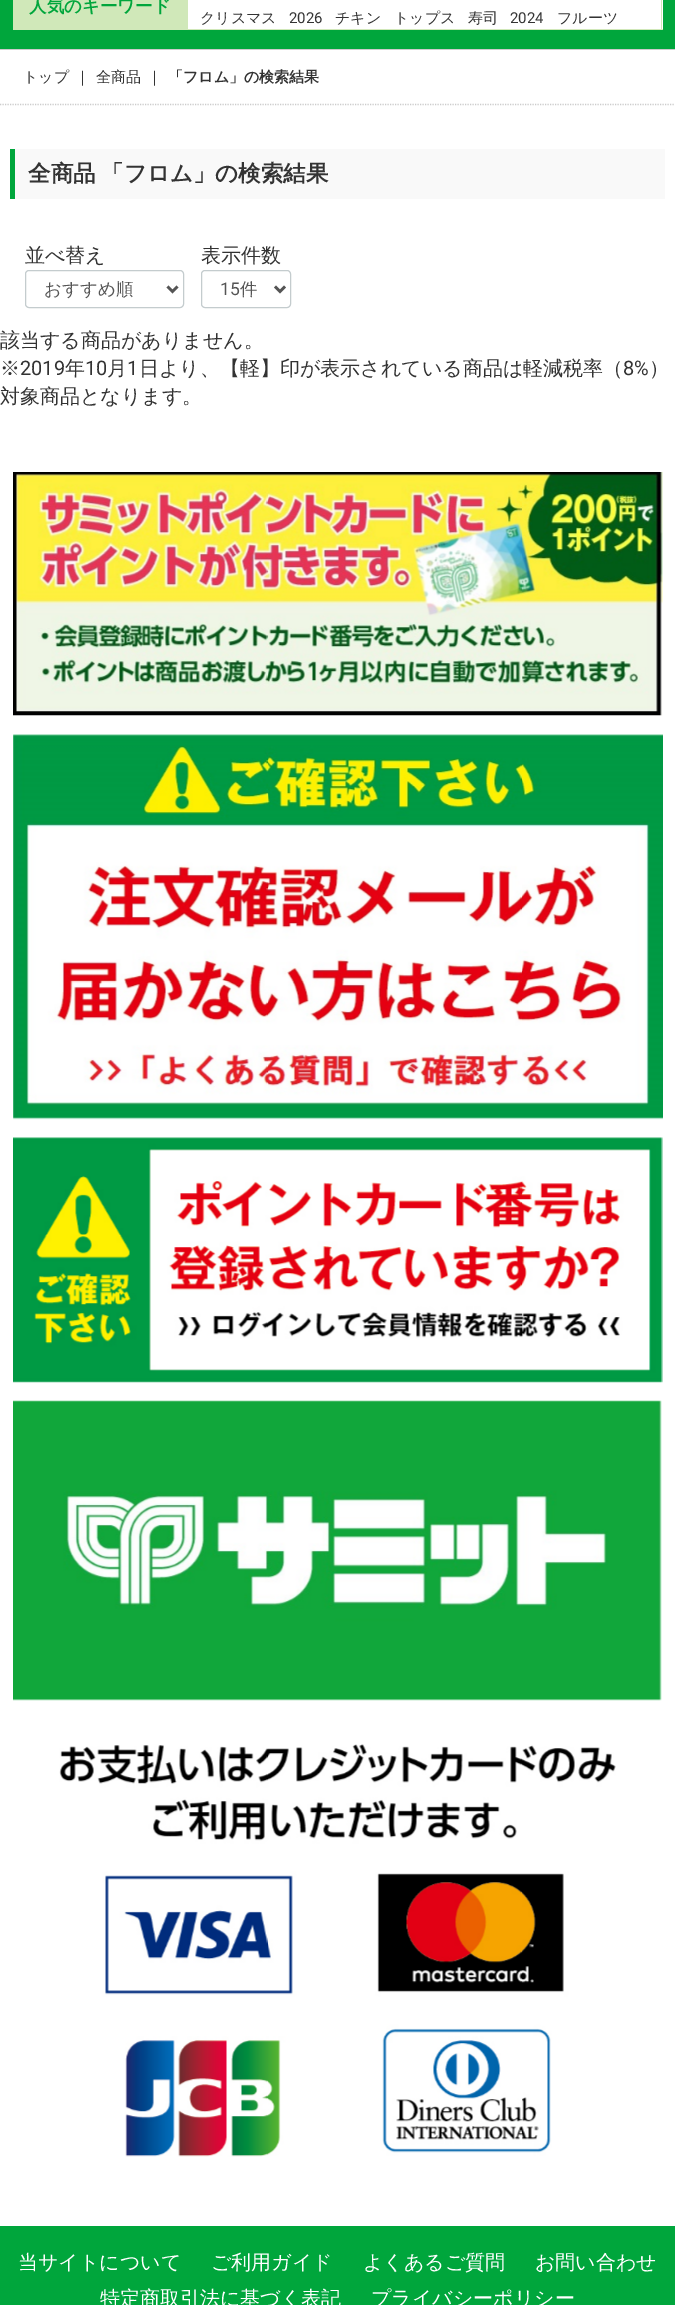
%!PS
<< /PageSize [675 2305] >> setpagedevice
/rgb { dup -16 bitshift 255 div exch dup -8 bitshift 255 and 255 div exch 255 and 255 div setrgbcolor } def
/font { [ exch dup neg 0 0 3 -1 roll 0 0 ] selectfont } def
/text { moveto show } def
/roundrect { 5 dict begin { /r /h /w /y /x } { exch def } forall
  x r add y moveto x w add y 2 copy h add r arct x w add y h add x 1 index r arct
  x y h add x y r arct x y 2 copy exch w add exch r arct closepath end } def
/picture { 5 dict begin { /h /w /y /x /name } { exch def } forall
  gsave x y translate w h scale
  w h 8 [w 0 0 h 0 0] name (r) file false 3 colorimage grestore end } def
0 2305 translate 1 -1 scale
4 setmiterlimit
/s1 { /WenQuanYiZenHei-Bold 17.5 font 16#00A63C rgb } def
/s2 { /WenQuanYiZenHei-Medium 15 font 16#333333 rgb } def
/s3 { /Roboto-Regular 15 font 16#333333 rgb } def
/s4 { /WenQuanYiZenHei-Bold 15 font 16#333333 rgb } def
/s5 { /WenQuanYiZenHei-Bold 22.5 font 16#333333 rgb } def
/s6 { /WenQuanYiZenHei-Medium 20 font 16#333333 rgb } def
/s7 { /WenQuanYiZenHei-Medium 17.5 font 16#555555 rgb } def
/s8 { /Roboto-Regular 17.5 font 16#555555 rgb } def
/s9 { /Roboto-Regular 20 font 16#333333 rgb } def
/s10 { /WenQuanYiZenHei-Medium 20 font 16#FFFFFF rgb } def
16#FFFFFF rgb
0 0 675 2305 rectfill
16#00A63C rgb
0 0 675 49 rectfill
16#D0E8B9 rgb
13 0 175 30 rectfill
s1
(人気のキーワード) 29 12 text
16#FFFFFF rgb
188 0 475 29 rectfill
16#D0E8B9 rgb
661 0 1 30 rectfill
188 29 475 1 rectfill
s2
(クリスマス) 200 23 text
s3
(2026) 289 23 text
s2
(チキン) 335 23 text
(トップス) 394 23 text
(寿司) 468 23 text
s3
(2024) 510 23 text
s2
(フルーツ) 557 23 text
16#CCCCCC rgb
0 49 675 1 rectfill
1.2 setlinewidth
[1.25 1.25] 0 setdash
0 104.5 moveto 675 104.5 lineto stroke
s2
(トップ) 23 82 text
(｜) 75 82 text
(全商品) 96 82 text
(｜) 147 82 text
s4
(「フロム」の検索結果) 168 82 text
16#F9F9F9 rgb
15 149 650 50 rectfill
16#00A63C rgb
10 149 5 50 rectfill
s5
(全商品) 28 181 text
(「フロム」の検索結果) 101 181 text
s6
(並べ替え) 25 262 text
16#C4CCCE rgb
1 setlinewidth
[] 0 setdash
25.5 270.5 158 37 3.5 roundrect stroke
16#555555 rgb
2.5 setlinewidth
167.5 286.5 moveto 172.5 291.5 lineto 177.5 286.5 lineto stroke
s7
(おすすめ順) 44 295 text
s6
(表示件数) 201 262 text
16#C4CCCE rgb
1 setlinewidth
201.5 270.5 89 37 3.5 roundrect stroke
16#555555 rgb
2.5 setlinewidth
275 286.5 moveto 280 291.5 lineto 285 286.5 lineto stroke
s8
(15) 220 295 text
s7
(件) 240 295 text
s6
(該当する商品がありません。) 0 347 text
(※) 0 375 text
s9
(2019) 20 375 text
s6
(年) 65 375 text
s9
(10) 85 375 text
s6
(月) 107 375 text
s9
(1) 127 375 text
s6
(日より、【軽】印が表示されている商品は軽減税率（) 139 375 text
s9
(8%) 623 375 text
s6
(）) 649 375 text
(対象商品となります。) 0 403 text
(pic1.raw) 13 472 650 244 picture
(pic2.raw) 13 734 650 386 picture
(pic3.raw) 13 1137 650 246 picture
(pic4.raw) 13 1400 649 301 picture
(pic5.raw) 59 1744 557 413 picture
16#00A63C rgb
0 2226 675 79 rectfill
s10
(当サイトについて) 18 2269 text
(ご利用ガイド) 211 2269 text
(よくあるご質問) 363 2269 text
(お問い合わせ) 535 2269 text
(特定商取引法に基づく表記) 100 2305 text
(プライバシーポリシー) 371 2305 text
showpage
